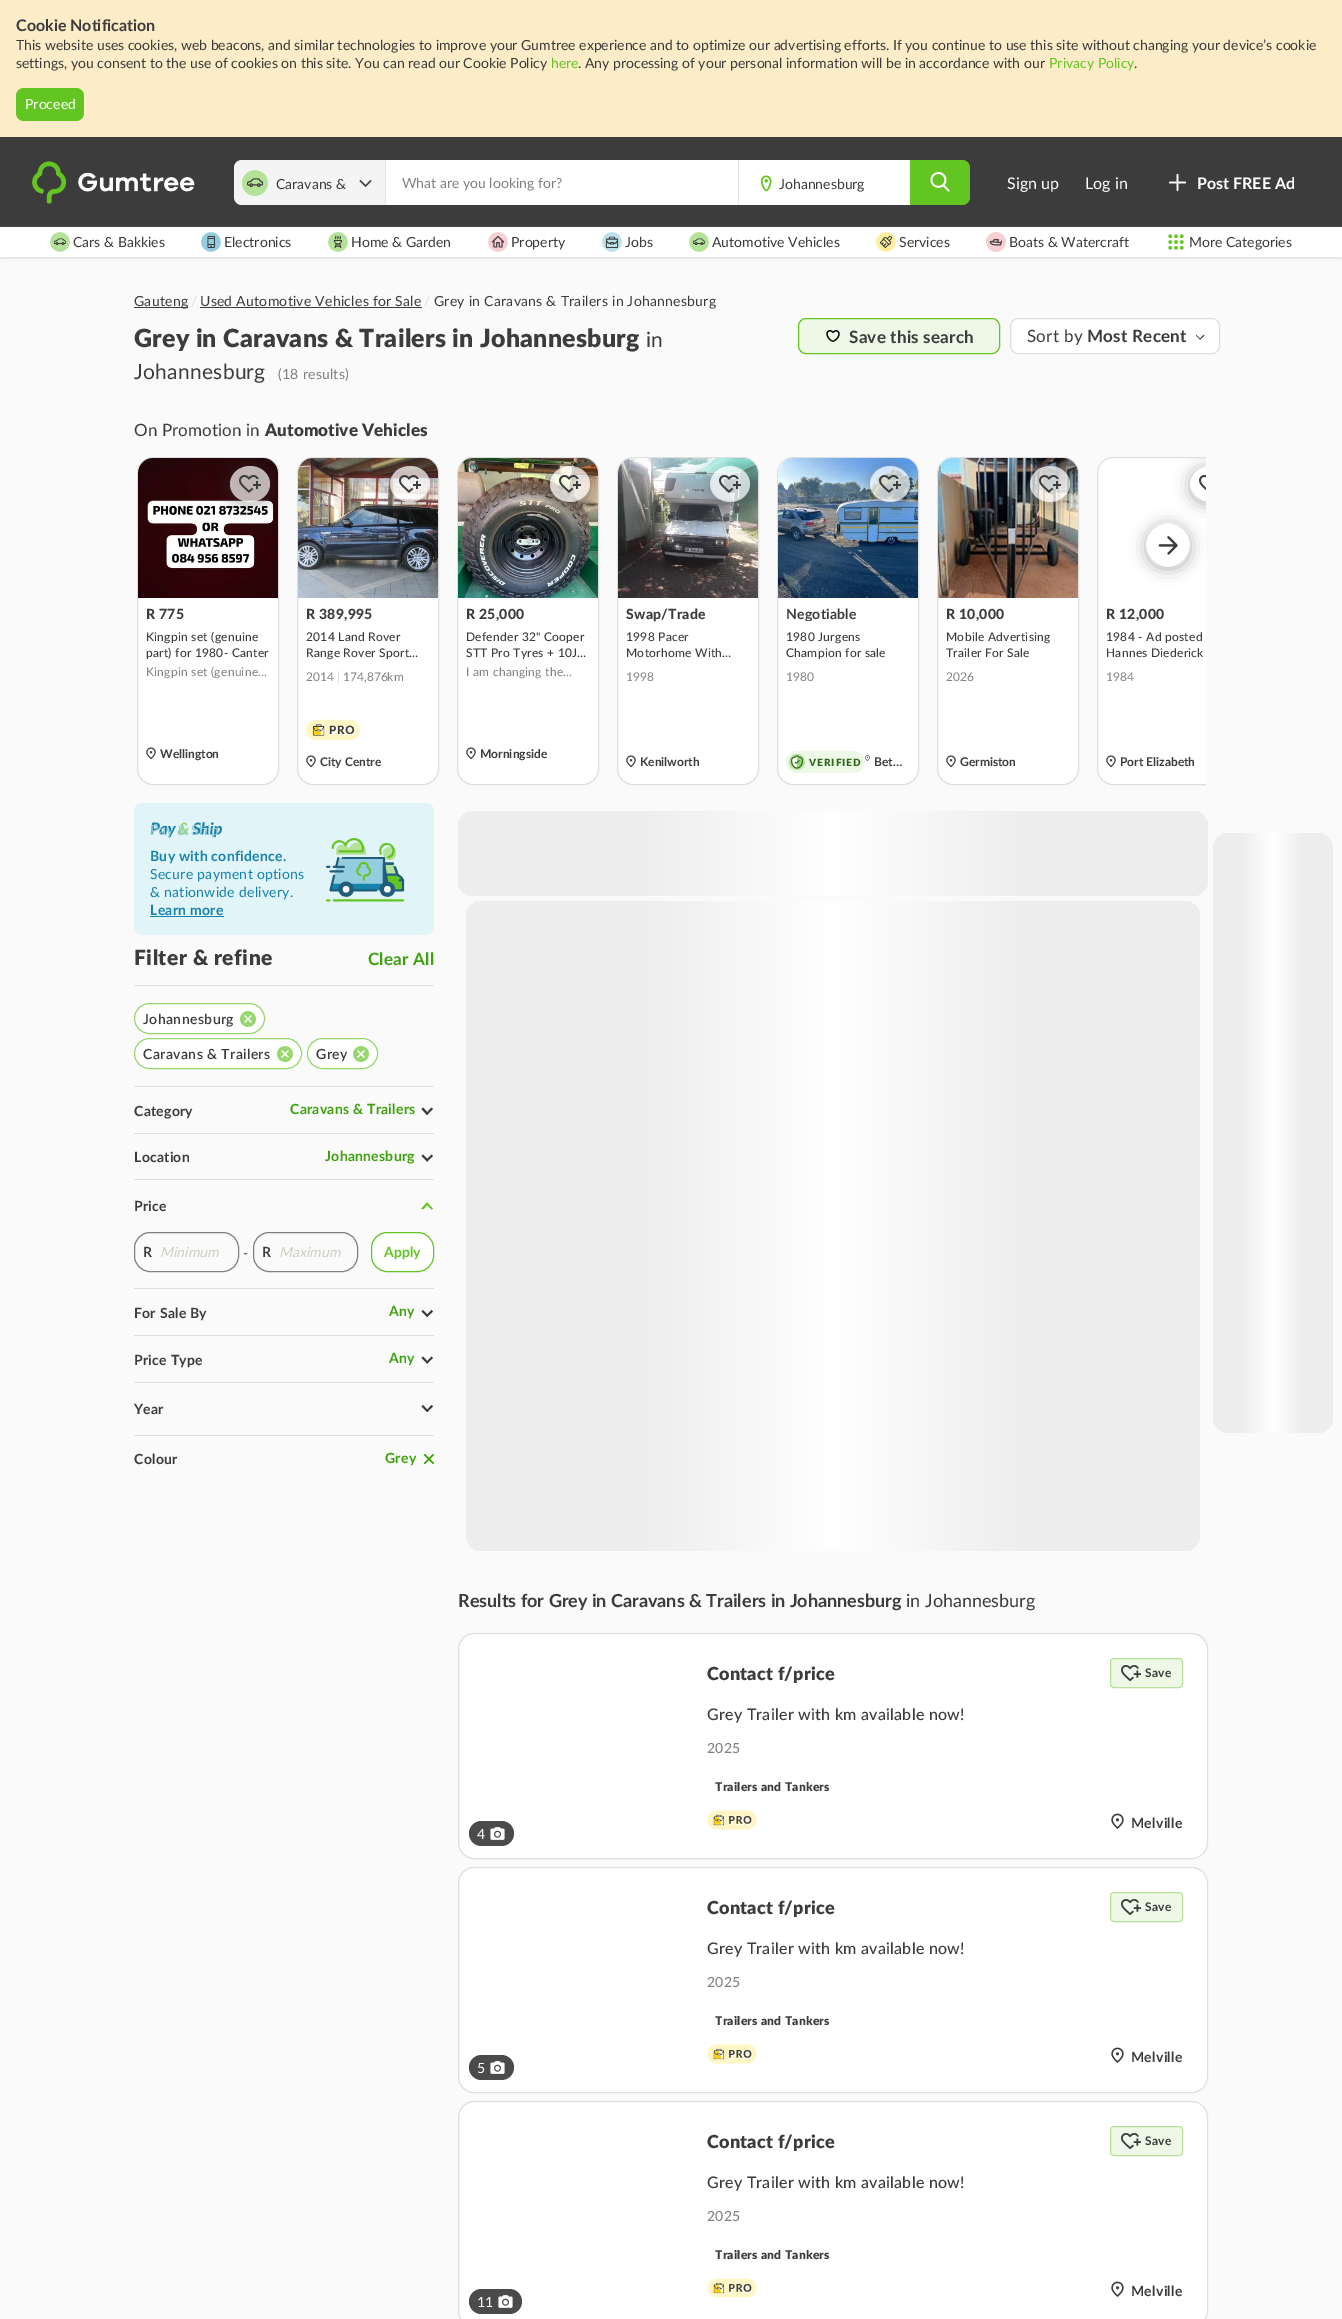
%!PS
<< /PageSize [1342 2319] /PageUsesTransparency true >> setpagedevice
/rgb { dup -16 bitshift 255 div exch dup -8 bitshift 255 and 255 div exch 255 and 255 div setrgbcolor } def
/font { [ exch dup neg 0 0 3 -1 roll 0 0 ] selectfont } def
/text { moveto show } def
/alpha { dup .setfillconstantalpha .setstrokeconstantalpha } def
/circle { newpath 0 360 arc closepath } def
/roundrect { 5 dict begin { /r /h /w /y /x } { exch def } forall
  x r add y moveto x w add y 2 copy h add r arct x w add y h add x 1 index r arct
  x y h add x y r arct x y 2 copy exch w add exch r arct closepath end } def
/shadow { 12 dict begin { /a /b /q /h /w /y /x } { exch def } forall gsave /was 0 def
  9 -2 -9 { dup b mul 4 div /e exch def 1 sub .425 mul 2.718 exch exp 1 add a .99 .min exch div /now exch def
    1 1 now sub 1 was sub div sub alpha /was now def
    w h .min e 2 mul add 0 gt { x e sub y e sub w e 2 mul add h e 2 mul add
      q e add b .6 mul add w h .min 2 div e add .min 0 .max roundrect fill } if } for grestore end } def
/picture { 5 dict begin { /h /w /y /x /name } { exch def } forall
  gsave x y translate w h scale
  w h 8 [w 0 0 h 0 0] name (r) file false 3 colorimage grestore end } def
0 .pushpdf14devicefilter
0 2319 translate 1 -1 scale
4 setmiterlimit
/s1 { /Lato-Bold 16 font 16#3C3C3C rgb } def
/s2 { /Lato-Regular 14 font 16#3C3C3C rgb } def
/s3 { /Lato-Regular 14 font 16#63C522 rgb } def
/s4 { /Lato-Regular 14 font 16#FFFFFF rgb } def
/s5 { /Lato-Regular 14 font 16#818181 rgb } def
/s6 { /Lato-Regular 16 font 16#FFFFFF rgb } def
/s7 { /Lato-Bold 16 font 16#FFFFFF rgb } def
/s8 { /Lato-Bold 12 font 16#3C3C3C rgb } def
/s9 { /Lato-Regular 12 font 16#818181 rgb } def
/s10 { /Lato-Italic 14 font 16#CFCDC1 rgb } def
/s11 { /Lato-Bold 14 font 16#63C522 rgb } def
/s12 { /Lato-Bold 18 font 16#3C3C3C rgb } def
/s13 { /Lato-Regular 18 font 16#3C3C3C rgb } def
16#FAFAFA rgb
0 0 1342 2319 rectfill
16#FCECC7 rgb
0 0 1342 137 rectfill
s1
(Cookie Notification) 16 31 text
s2
(This website uses cookies, web beacons, and similar technologies to improve your Gumtree experience and to optimize our advertising efforts. If you continue to use this site without changing your device’s cookie) 16 50 text
(settings, you consent to the use of cookies on this site. You can read our Cookie Policy) 16 68 text
s3
(here) 551 68 text
s2
(. Any processing of your personal information will be in accordance with our) 578 68 text
s3
(Privacy Policy) 1049 68 text
s2
(.) 1134 68 text
16#63C522 rgb
16 88 68 33 8 roundrect fill
s4
(Proceed) 25 109 text
16#3C3C3C rgb
0 137 1342 90 rectfill
(pic1.raw) 32 161 163 43 picture
16#F4F4F4 rgb
242 160 moveto 385 160 lineto 385 205 lineto 242 205 lineto 237.5 205 234 201.5 234 197 curveto 234 168 lineto 234 163.5 237.5 160 242 160 curveto closepath fill
(pic2.raw) 242 170 26 26 picture
s2
(Caravans &) 276 189 text
(pic3.raw) 359 180 13 7 picture
16#FFFFFF rgb
386 160 524 45 rectfill
16#E6E6E6 rgb
738 160 1 45 rectfill
385 160 1 45 rectfill
s5
(What are you looking for?) 402 188 text
(pic4.raw) 761 175 11 17 picture
s2
(Johannesburg) 779 189 text
16#63C522 rgb
910 160 moveto 962 160 lineto 966.5 160 970 163.5 970 168 curveto 970 197 lineto 970 201.5 966.5 205 962 205 curveto 910 205 lineto closepath fill
(pic5.raw) 930 172 20 20 picture
s6
(Sign up) 1007 189 text
(Log in) 1085 189 text
(pic6.raw) 1168 173 19 19 picture
s7
(Post FREE Ad) 1197 189 text
16#AFAEA5 rgb
0 228 1342 30 0 1.5 0.5 shadow
16#FFFFFF rgb
0 227 1342 30 rectfill
(pic7.raw) 50 232 20 20 picture
s2
(Cars & Bakkies) 73 247 text
(pic8.raw) 201 232 20 20 picture
(Electronics) 224 247 text
(pic9.raw) 328 232 20 20 picture
(Home & Garden) 351 247 text
(pic10.raw) 488 232 20 20 picture
(Property) 511 247 text
(pic11.raw) 602 232 20 20 picture
(Jobs) 625 247 text
(pic7.raw) 689 232 20 20 picture
(Automotive Vehicles) 712 247 text
(pic12.raw) 876 232 20 20 picture
(Services) 899 247 text
(pic13.raw) 986 232 20 20 picture
(Boats & Watercraft) 1009 247 text
(pic14.raw) 1168 234 16 16 picture
(More Categories) 1189 247 text
134 307 54 1 rectfill
134 306 moveto 0.25 0 (Gauteng) ashow
16#DEDEDE rgb
191 306 moveto 0.25 0 (/) ashow
16#3C3C3C rgb
200 306 moveto 0.25 0 (Used Automotive Vehicles for Sale) ashow
200 307 222 1 rectfill
16#DEDEDE rgb
424 306 moveto 0.25 0 (/) ashow
16#3C3C3C rgb
434 306 moveto 0.25 0 (Grey in Caravans & Trailers in Johannesburg) ashow
/Lato-Black 25 font
134 347 moveto 0.25 0 (Grey in Caravans & Trailers in Johannesburg) ashow
/Lato-Regular 21 font
646 347 moveto 0.25 0 (in) ashow
134 379 moveto 0.25 0 (Johannesburg) ashow
/Lato-Regular 14 font
16#818181 rgb
278 379 moveto 0.25 0 (\(18 results\)) ashow
16#EDF8E6 rgb
798.5 318.5 201 35 7.5 roundrect gsave fill grestore
16#63C522 rgb
stroke
(pic15.raw) 826 330 14 12 picture
/Lato-Bold 17 font
16#3C3C3C rgb
849 343 moveto 0.25 0 (Save this search) ashow
16#FFFFFF rgb
1010.5 318.5 209 35 7.5 roundrect gsave fill grestore
16#DEDEDE rgb
stroke
/Lato-Regular 17 font
16#3C3C3C rgb
1027 342 moveto 0.25 0 (Sort by) ashow
/Lato-Bold 17 font
1087 342 moveto 0.25 0 (Most Recent) ashow
1200 339.5 moveto 1196 335.5 lineto 1196.5 335 lineto 1200.5 339 lineto closepath fill
1200 339.5 moveto 1199.5 339 lineto 1203.5 335 lineto 1204.5 335.5 lineto closepath fill
/Lato-Regular 17 font
134 436 moveto 0.1 0 (On Promotion in) ashow
/Lato-Black 17 font
265 436 moveto 0.1 0 (Automotive Vehicles) ashow
16#FFFFFF rgb
1113 457 moveto 1206 457 lineto 1206 785 lineto 1113 785 lineto 1104 785 1097 778 1097 769 curveto 1097 473 lineto 1097 464 1104 457 1113 457 curveto closepath fill
gsave
128 453 1078 336 rectclip
16#DEDEDE rgb
1097.5 457.5 141 327 15.5 roundrect stroke
grestore
gsave
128 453 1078 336 rectclip
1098 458 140 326 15 roundrect clip newpath
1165 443 moveto 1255 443 lineto 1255 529 lineto 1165 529 lineto closepath 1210 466 moveto 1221 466 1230 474 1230 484 curveto 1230 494 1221 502 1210 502 curveto 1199 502 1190 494 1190 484 curveto 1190 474 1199 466 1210 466 curveto closepath eoclip newpath
16#3C3C3C rgb
1190 468 40 36 18 8 0.4 shadow
grestore
gsave
128 453 1078 336 rectclip
0.7 alpha
1210 466 moveto 1221 466 1230 474 1230 484 curveto 1230 494 1221 502 1210 502 curveto 1199 502 1190 494 1190 484 curveto 1190 474 1199 466 1210 466 curveto closepath fill
grestore
gsave
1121 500 moveto 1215 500 lineto 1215 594 lineto 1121 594 lineto closepath 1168 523 moveto 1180 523 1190 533 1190 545 curveto 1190 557 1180 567 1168 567 curveto 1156 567 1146 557 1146 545 curveto 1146 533 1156 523 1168 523 curveto closepath eoclip newpath
16#3C3C3C rgb
1146 525 44 44 22 8 0.4 shadow
grestore
0.7 alpha
1168 545 22 circle fill
1 alpha
(pic16.raw) 1158 536 20 19 picture
137.5 457.5 141 327 15.5 roundrect gsave fill grestore
16#DEDEDE rgb
stroke
(pic18.raw) 138 458 140 140 picture
gsave
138 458 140 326 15 roundrect clip newpath
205 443 moveto 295 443 lineto 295 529 lineto 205 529 lineto closepath 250 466 moveto 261 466 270 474 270 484 curveto 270 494 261 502 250 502 curveto 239 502 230 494 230 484 curveto 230 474 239 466 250 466 curveto closepath eoclip newpath
16#3C3C3C rgb
230 468 40 36 18 8 0.4 shadow
grestore
0.7 alpha
16#FFFFFF rgb
250 466 moveto 261 466 270 474 270 484 curveto 270 494 261 502 250 502 curveto 239 502 230 494 230 484 curveto 230 474 239 466 250 466 curveto closepath fill
1 alpha
(pic17.raw) 239 475 22 18 picture
/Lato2-Black 14 font
16#3C3C3C rgb
146 619 moveto 0.25 0 (R 775) ashow
/Lato-Medium 12 font
146 641 moveto 0.25 0 (Kingpin set \(genuine) ashow
146 657 moveto 0.25 0 (part\) for 1980- Canter) ashow
/Lato-Regular 12 font
16#818181 rgb
146 676 moveto 0.25 0 (Kingpin set \(genuine…) ashow
(pic19.raw) 146 747 10 13 picture
s8
(Wellington) 160 758 text
16#FFFFFF rgb
297.5 457.5 141 327 15.5 roundrect gsave fill grestore
16#DEDEDE rgb
stroke
(pic21.raw) 298 458 140 140 picture
gsave
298 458 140 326 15 roundrect clip newpath
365 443 moveto 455 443 lineto 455 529 lineto 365 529 lineto closepath 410 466 moveto 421 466 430 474 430 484 curveto 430 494 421 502 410 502 curveto 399 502 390 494 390 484 curveto 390 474 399 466 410 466 curveto closepath eoclip newpath
16#3C3C3C rgb
390 468 40 36 18 8 0.4 shadow
grestore
0.7 alpha
16#FFFFFF rgb
410 466 moveto 421 466 430 474 430 484 curveto 430 494 421 502 410 502 curveto 399 502 390 494 390 484 curveto 390 474 399 466 410 466 curveto closepath fill
1 alpha
(pic20.raw) 399 475 22 18 picture
/Lato2-Black 14 font
16#3C3C3C rgb
306 619 moveto 0.25 0 (R 389,995) ashow
/Lato-Medium 12 font
306 641 moveto 0.25 0 (2014 Land Rover) ashow
306 657 moveto 0.25 0 (Range Rover Sport…) ashow
s9
(2014) 306 681 text
16#DEDEDE rgb
338 671 1 12 rectfill
s9
(174,876km) 343 681 text
(pic22.raw) 306 719 54 22 picture
(pic19.raw) 306 755 10 13 picture
s8
(City Centre) 320 766 text
16#FFFFFF rgb
457.5 457.5 141 327 15.5 roundrect gsave fill grestore
16#DEDEDE rgb
stroke
(pic24.raw) 458 458 140 140 picture
gsave
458 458 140 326 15 roundrect clip newpath
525 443 moveto 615 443 lineto 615 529 lineto 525 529 lineto closepath 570 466 moveto 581 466 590 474 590 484 curveto 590 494 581 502 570 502 curveto 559 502 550 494 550 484 curveto 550 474 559 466 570 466 curveto closepath eoclip newpath
16#3C3C3C rgb
550 468 40 36 18 8 0.4 shadow
grestore
0.7 alpha
16#FFFFFF rgb
570 466 moveto 581 466 590 474 590 484 curveto 590 494 581 502 570 502 curveto 559 502 550 494 550 484 curveto 550 474 559 466 570 466 curveto closepath fill
1 alpha
(pic23.raw) 559 475 22 18 picture
/Lato2-Black 14 font
16#3C3C3C rgb
466 619 moveto 0.25 0 (R 25,000) ashow
/Lato-Medium 12 font
466 641 moveto 0.25 0 (Defender 32" Cooper) ashow
466 657 moveto 0.25 0 (STT Pro Tyres + 10J…) ashow
/Lato-Regular 12 font
16#818181 rgb
466 676 moveto 0.25 0 (I am changing the…) ashow
(pic19.raw) 466 747 10 13 picture
s8
(Morningside) 480 758 text
16#FFFFFF rgb
617.5 457.5 141 327 15.5 roundrect gsave fill grestore
16#DEDEDE rgb
stroke
(pic26.raw) 618 458 140 140 picture
gsave
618 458 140 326 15 roundrect clip newpath
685 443 moveto 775 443 lineto 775 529 lineto 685 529 lineto closepath 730 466 moveto 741 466 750 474 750 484 curveto 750 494 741 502 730 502 curveto 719 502 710 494 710 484 curveto 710 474 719 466 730 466 curveto closepath eoclip newpath
16#3C3C3C rgb
710 468 40 36 18 8 0.4 shadow
grestore
0.7 alpha
16#FFFFFF rgb
730 466 moveto 741 466 750 474 750 484 curveto 750 494 741 502 730 502 curveto 719 502 710 494 710 484 curveto 710 474 719 466 730 466 curveto closepath fill
1 alpha
(pic25.raw) 719 475 22 18 picture
/Lato2-Black 14 font
16#3C3C3C rgb
626 619 moveto 0.25 0 (Swap/Trade) ashow
/Lato-Medium 12 font
626 641 moveto 0.25 0 (1998 Pacer) ashow
626 657 moveto 0.25 0 (Motorhome With…) ashow
s9
(1998) 626 681 text
(pic19.raw) 626 755 10 13 picture
s8
(Kenilworth) 640 766 text
16#FFFFFF rgb
777.5 457.5 141 327 15.5 roundrect gsave fill grestore
16#DEDEDE rgb
stroke
(pic28.raw) 778 458 140 140 picture
gsave
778 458 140 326 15 roundrect clip newpath
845 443 moveto 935 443 lineto 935 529 lineto 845 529 lineto closepath 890 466 moveto 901 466 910 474 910 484 curveto 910 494 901 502 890 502 curveto 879 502 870 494 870 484 curveto 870 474 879 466 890 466 curveto closepath eoclip newpath
16#3C3C3C rgb
870 468 40 36 18 8 0.4 shadow
grestore
0.7 alpha
16#FFFFFF rgb
890 466 moveto 901 466 910 474 910 484 curveto 910 494 901 502 890 502 curveto 879 502 870 494 870 484 curveto 870 474 879 466 890 466 curveto closepath fill
1 alpha
(pic27.raw) 879 475 22 18 picture
gsave
786 606 79 15 rectclip
/Lato-Bold 14 font
16#3C3C3C rgb
786 619 moveto 0.25 0 (Negotiable) ashow
grestore
/Lato-Medium 12 font
16#3C3C3C rgb
786 641 moveto 0.25 0 (1980 Jurgens) ashow
786 657 moveto 0.25 0 (Champion for sale) ashow
s9
(1980) 786 681 text
16#EDF8E6 rgb
786 751 79 22 11 roundrect fill
(pic29.raw) 789 754 16 16 picture
/Lato-Black 10 font
16#2D681B rgb
809 766 moveto 1 0 (VERIFIED) ashow
(pic30.raw) 865 755 5 6 picture
s8
(Bet…) 874 766 text
16#FFFFFF rgb
937.5 457.5 141 327 15.5 roundrect gsave fill grestore
16#DEDEDE rgb
stroke
(pic32.raw) 938 458 140 140 picture
gsave
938 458 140 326 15 roundrect clip newpath
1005 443 moveto 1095 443 lineto 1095 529 lineto 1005 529 lineto closepath 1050 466 moveto 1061 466 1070 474 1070 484 curveto 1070 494 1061 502 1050 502 curveto 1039 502 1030 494 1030 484 curveto 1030 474 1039 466 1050 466 curveto closepath eoclip newpath
16#3C3C3C rgb
1030 468 40 36 18 8 0.4 shadow
grestore
0.7 alpha
16#FFFFFF rgb
1050 466 moveto 1061 466 1070 474 1070 484 curveto 1070 494 1061 502 1050 502 curveto 1039 502 1030 494 1030 484 curveto 1030 474 1039 466 1050 466 curveto closepath fill
1 alpha
(pic31.raw) 1039 475 22 18 picture
/Lato2-Black 14 font
16#3C3C3C rgb
946 619 moveto 0.25 0 (R 10,000) ashow
/Lato-Medium 12 font
946 641 moveto 0.25 0 (Mobile Advertising) ashow
946 657 moveto 0.25 0 (Trailer For Sale) ashow
s9
(2026) 946 681 text
(pic19.raw) 946 755 10 13 picture
s8
(Germiston) 960 766 text
(pic33.raw) 1199 475 7 16 picture
/Lato2-Black 14 font
1106 619 moveto 0.25 0 (R 12,000) ashow
/Lato-Medium 12 font
1106 641 moveto 0.25 0 (1984 - Ad posted) ashow
1106 657 moveto 0.25 0 (Hannes Diederick) ashow
s9
(1984) 1106 681 text
(pic19.raw) 1106 755 10 13 picture
s8
(Port Elizabeth) 1120 766 text
16#E1F4F7 rgb
134 803 300 132 8 roundrect fill
(pic34.raw) 150 822 73 16 picture
/Lato-Regular 14 font
16#96CAD2 rgb
150 835 moveto 0.25 0 (Pay & Ship) ashow
/Lato-Bold 14 font
16#1782AC rgb
150 861 moveto 0.25 0 (Buy with confidence.) ashow
/Lato-Regular 14 font
150 879 moveto 0.25 0 (Secure payment options) ashow
150 897 moveto 0.25 0 (& nationwide delivery.) ashow
/Lato-Bold 14 font
150 915 moveto 0.25 0 (Learn more) ashow
150 916 74 1 rectfill
(pic35.raw) 326 838 79 64 picture
/Lato-Black 21 font
16#3C3C3C rgb
134 965 moveto 0.5 0 (Filter & refine) ashow
/Lato-Bold 17 font
16#3DA10D rgb
368 965 moveto 0.25 0 (Clear All) ashow
16#DEDEDE rgb
134 985 300 1 rectfill
16#FFFFFF rgb
134.5 1003.5 130 30 15 roundrect gsave fill grestore
16#96D76E rgb
stroke
/Lato-SemiBold 14 font
16#3C3C3C rgb
143 1024 moveto 0.4 0 (Johannesburg) ashow
(pic36.raw) 240 1011 16 16 picture
16#FFFFFF rgb
134.5 1038.5 167 30 15 roundrect gsave fill grestore
16#96D76E rgb
stroke
16#3C3C3C rgb
143 1059 moveto 0.4 0 (Caravans & Trailers) ashow
(pic36.raw) 277 1046 16 16 picture
16#FFFFFF rgb
307.5 1038.5 70 30 15 roundrect gsave fill grestore
16#96D76E rgb
stroke
16#3C3C3C rgb
316 1059 moveto 0.4 0 (Grey) ashow
(pic36.raw) 353 1046 16 16 picture
16#DEDEDE rgb
134 1086 300 1 rectfill
/Lato-Bold 14 font
16#3C3C3C rgb
134 1116 moveto 0.25 0 (Category) ashow
16#3DA10D rgb
290 1114 moveto 0.25 0 (Caravans & Trailers) ashow
16#3C3C3C rgb
431.5 1107.5 moveto 433 1109 lineto 427 1115 lineto 426 1113.5 lineto closepath fill
16#DEDEDE rgb
134 1133 300 1 rectfill
16#3C3C3C rgb
423 1107.5 moveto 428.5 1113.5 lineto 427 1115 lineto 421.5 1109 lineto closepath 431.5 1154.5 moveto 433 1156 lineto 427 1161.5 lineto 426 1160 lineto closepath fill
134 1162 moveto 0.25 0 (Location) ashow
16#3DA10D rgb
325 1161 moveto 0.25 0 (Johannesburg) ashow
16#3C3C3C rgb
423 1154.5 moveto 428.5 1160 lineto 427 1161.5 lineto 421.5 1156 lineto closepath fill
16#DEDEDE rgb
134 1179 300 1 rectfill
16#3C3C3C rgb
134 1211 moveto 0.25 0 (Price) ashow
16#63C522 rgb
423 1209.5 moveto 421.5 1208.5 lineto 427 1202.5 lineto 428.5 1204 lineto closepath fill
431.5 1209.5 moveto 426 1204 lineto 427 1202.5 lineto 433 1208.5 lineto closepath fill
16#818181 rgb
134.5 1232.5 104 39 15.5 roundrect stroke
16#3C3C3C rgb
143 1257 moveto 0.25 0 (R) ashow
s10
(Minimum) 160 1257 text
/Lato-Regular 14 font
16#3C3C3C rgb
243 1258 moveto 0.25 0 (-) ashow
16#818181 rgb
253.5 1232.5 104 39 15.5 roundrect stroke
/Lato-Bold 14 font
16#3C3C3C rgb
262 1257 moveto 0.25 0 (R) ashow
s10
(Maximum) 279 1257 text
16#FFFFFF rgb
371.5 1232.5 62 39 15.5 roundrect gsave fill grestore
16#63C522 rgb
stroke
s11
(Apply) 384 1257 text
16#DEDEDE rgb
134 1288 300 1 rectfill
16#3C3C3C rgb
134 1318 moveto 0.25 0 (For Sale By) ashow
16#3DA10D rgb
389 1316 moveto 0.25 0 (Any) ashow
16#3C3C3C rgb
431.5 1310 moveto 433 1311.5 lineto 427 1317 lineto 426 1315.5 lineto closepath fill
16#DEDEDE rgb
134 1335 300 1 rectfill
16#3C3C3C rgb
423 1310 moveto 428.5 1315.5 lineto 427 1317 lineto 421.5 1311.5 lineto closepath 431.5 1356.5 moveto 433 1358 lineto 427 1363.5 lineto 426 1362.5 lineto closepath fill
134 1365 moveto 0.25 0 (Price Type) ashow
16#3DA10D rgb
389 1363 moveto 0.25 0 (Any) ashow
16#DEDEDE rgb
134 1382 300 1 rectfill
16#3C3C3C rgb
423 1356.5 moveto 428.5 1362.5 lineto 427 1363.5 lineto 421.5 1358 lineto closepath 431.5 1405 moveto 433 1406.5 lineto 427 1412 lineto 426 1411 lineto closepath fill
134 1414 moveto 0.25 0 (Year) ashow
423 1405 moveto 428.5 1411 lineto 427 1412 lineto 421.5 1406.5 lineto closepath fill
16#DEDEDE rgb
134 1435 300 1 rectfill
16#3C3C3C rgb
134 1464 moveto 0.25 0 (Colour) ashow
16#3DA10D rgb
385 1463 moveto 0.25 0 (Grey) ashow
(pic37.raw) 424 1454 10 10 picture
gsave 1213 833 120 600 16 roundrect clip newpath
<< /ShadingType 2 /ColorSpace /DeviceRGB /Coords [1213 1433 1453 1433] /Extend [true true] /Function << /FunctionType 3 /Domain [0 1] /Functions [<< /FunctionType 2 /Domain [0 1] /C0 [0.929 0.929 0.929] /C1 [0.929 0.929 0.929] /N 1 >> << /FunctionType 2 /Domain [0 1] /C0 [0.929 0.929 0.929] /C1 [1 1 1] /N 1 >> << /FunctionType 2 /Domain [0 1] /C0 [1 1 1] /C1 [0.929 0.929 0.929] /N 1 >> << /FunctionType 2 /Domain [0 1] /C0 [0.929 0.929 0.929] /C1 [0.929 0.929 0.929] /N 1 >> << /FunctionType 2 /Domain [0 1] /C0 [0.929 0.929 0.929] /C1 [1 1 1] /N 1 >> << /FunctionType 2 /Domain [0 1] /C0 [1 1 1] /C1 [0.929 0.929 0.929] /N 1 >> << /FunctionType 2 /Domain [0 1] /C0 [0.929 0.929 0.929] /C1 [0.929 0.929 0.929] /N 1 >>] /Bounds [0.12 0.25 0.38 0.62 0.75 0.88] /Encode [0 1 0 1 0 1 0 1 0 1 0 1 0 1] >> >> shfill grestore
gsave 458 811 750 85 16 roundrect clip newpath
<< /ShadingType 2 /ColorSpace /DeviceRGB /Coords [458 896 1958 896] /Extend [true true] /Function << /FunctionType 3 /Domain [0 1] /Functions [<< /FunctionType 2 /Domain [0 1] /C0 [0.929 0.929 0.929] /C1 [0.929 0.929 0.929] /N 1 >> << /FunctionType 2 /Domain [0 1] /C0 [0.929 0.929 0.929] /C1 [1 1 1] /N 1 >> << /FunctionType 2 /Domain [0 1] /C0 [1 1 1] /C1 [0.929 0.929 0.929] /N 1 >> << /FunctionType 2 /Domain [0 1] /C0 [0.929 0.929 0.929] /C1 [0.929 0.929 0.929] /N 1 >> << /FunctionType 2 /Domain [0 1] /C0 [0.929 0.929 0.929] /C1 [1 1 1] /N 1 >> << /FunctionType 2 /Domain [0 1] /C0 [1 1 1] /C1 [0.929 0.929 0.929] /N 1 >> << /FunctionType 2 /Domain [0 1] /C0 [0.929 0.929 0.929] /C1 [0.929 0.929 0.929] /N 1 >>] /Bounds [0.12 0.25 0.38 0.62 0.75 0.88] /Encode [0 1 0 1 0 1 0 1 0 1 0 1 0 1] >> >> shfill grestore
gsave 466 901 734 650 16 roundrect clip newpath
<< /ShadingType 2 /ColorSpace /DeviceRGB /Coords [466 1551 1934 1551] /Extend [true true] /Function << /FunctionType 3 /Domain [0 1] /Functions [<< /FunctionType 2 /Domain [0 1] /C0 [0.929 0.929 0.929] /C1 [0.929 0.929 0.929] /N 1 >> << /FunctionType 2 /Domain [0 1] /C0 [0.929 0.929 0.929] /C1 [1 1 1] /N 1 >> << /FunctionType 2 /Domain [0 1] /C0 [1 1 1] /C1 [0.929 0.929 0.929] /N 1 >> << /FunctionType 2 /Domain [0 1] /C0 [0.929 0.929 0.929] /C1 [0.929 0.929 0.929] /N 1 >> << /FunctionType 2 /Domain [0 1] /C0 [0.929 0.929 0.929] /C1 [1 1 1] /N 1 >> << /FunctionType 2 /Domain [0 1] /C0 [1 1 1] /C1 [0.929 0.929 0.929] /N 1 >> << /FunctionType 2 /Domain [0 1] /C0 [0.929 0.929 0.929] /C1 [0.929 0.929 0.929] /N 1 >>] /Bounds [0.12 0.25 0.38 0.62 0.75 0.88] /Encode [0 1 0 1 0 1 0 1 0 1 0 1 0 1] >> >> shfill grestore
s12
(Results for Grey in Caravans & Trailers in Johannesburg) 458 1607 text
s13
(in Johannesburg) 906 1607 text
16#FFFFFF rgb
458.5 1633.5 749 225 15.5 roundrect gsave fill grestore
16#DEDEDE rgb
stroke
/Lato-Black 18 font
16#3C3C3C rgb
707 1680 moveto 0.25 0 (Contact f/price) ashow
16#EDF8E6 rgb
1110.5 1658.5 72 29 3.5 roundrect gsave fill grestore
16#B5E299 rgb
stroke
(pic38.raw) 1121 1665 20 16 picture
/Lato-Bold 12 font
16#3C3C3C rgb
1145 1677 moveto 0.25 0 (Save) ashow
/Lato-Medium 16 font
707 1720 moveto 0.25 0 (Grey Trailer with km available now!) ashow
/Lato-Medium 14 font
16#818181 rgb
707 1753 moveto 0.25 0 (2025) ashow
/Lato-Black 12 font
16#3C3C3C rgb
715 1791 moveto 0.25 0 (Trailers and Tankers) ashow
(pic39.raw) 707 1810 50 20 picture
(pic40.raw) 1111 1813 13 16 picture
/Lato-Bold 14 font
1131 1828 moveto 0.25 0 (Melville) ashow
16#4B4B4B rgb
469 1821 45 25 12.5 roundrect fill
s4
(4) 477 1839 text
(pic41.raw) 490 1827 15 13 picture
458.5 1867.5 749 225 15.5 roundrect gsave fill grestore
16#DEDEDE rgb
stroke
/Lato-Black 18 font
16#3C3C3C rgb
707 1914 moveto 0.25 0 (Contact f/price) ashow
16#EDF8E6 rgb
1110.5 1892.5 72 29 3.5 roundrect gsave fill grestore
16#B5E299 rgb
stroke
(pic38.raw) 1121 1899 20 16 picture
/Lato-Bold 12 font
16#3C3C3C rgb
1145 1911 moveto 0.25 0 (Save) ashow
/Lato-Medium 16 font
707 1954 moveto 0.25 0 (Grey Trailer with km available now!) ashow
/Lato-Medium 14 font
16#818181 rgb
707 1987 moveto 0.25 0 (2025) ashow
/Lato-Black 12 font
16#3C3C3C rgb
715 2025 moveto 0.25 0 (Trailers and Tankers) ashow
(pic39.raw) 707 2044 50 20 picture
(pic40.raw) 1111 2047 13 16 picture
/Lato-Bold 14 font
1131 2062 moveto 0.25 0 (Melville) ashow
16#4B4B4B rgb
469 2055 45 25 12.5 roundrect fill
s4
(5) 477 2073 text
(pic41.raw) 490 2061 15 13 picture
458.5 2101.5 749 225 15.5 roundrect gsave fill grestore
16#DEDEDE rgb
stroke
/Lato-Black 18 font
16#3C3C3C rgb
707 2148 moveto 0.25 0 (Contact f/price) ashow
16#EDF8E6 rgb
1110.5 2126.5 72 29 3.5 roundrect gsave fill grestore
16#B5E299 rgb
stroke
(pic38.raw) 1121 2133 20 16 picture
/Lato-Bold 12 font
16#3C3C3C rgb
1145 2145 moveto 0.25 0 (Save) ashow
/Lato-Medium 16 font
707 2188 moveto 0.25 0 (Grey Trailer with km available now!) ashow
/Lato-Medium 14 font
16#818181 rgb
707 2221 moveto 0.25 0 (2025) ashow
/Lato-Black 12 font
16#3C3C3C rgb
715 2259 moveto 0.25 0 (Trailers and Tankers) ashow
(pic42.raw) 707 2278 50 20 picture
(pic40.raw) 1111 2281 13 16 picture
/Lato-Bold 14 font
1131 2296 moveto 0.25 0 (Melville) ashow
16#4B4B4B rgb
469 2289 53 25 12.5 roundrect fill
s4
(11) 477 2307 text
(pic41.raw) 498 2295 15 13 picture
.poppdf14devicefilter showpage
